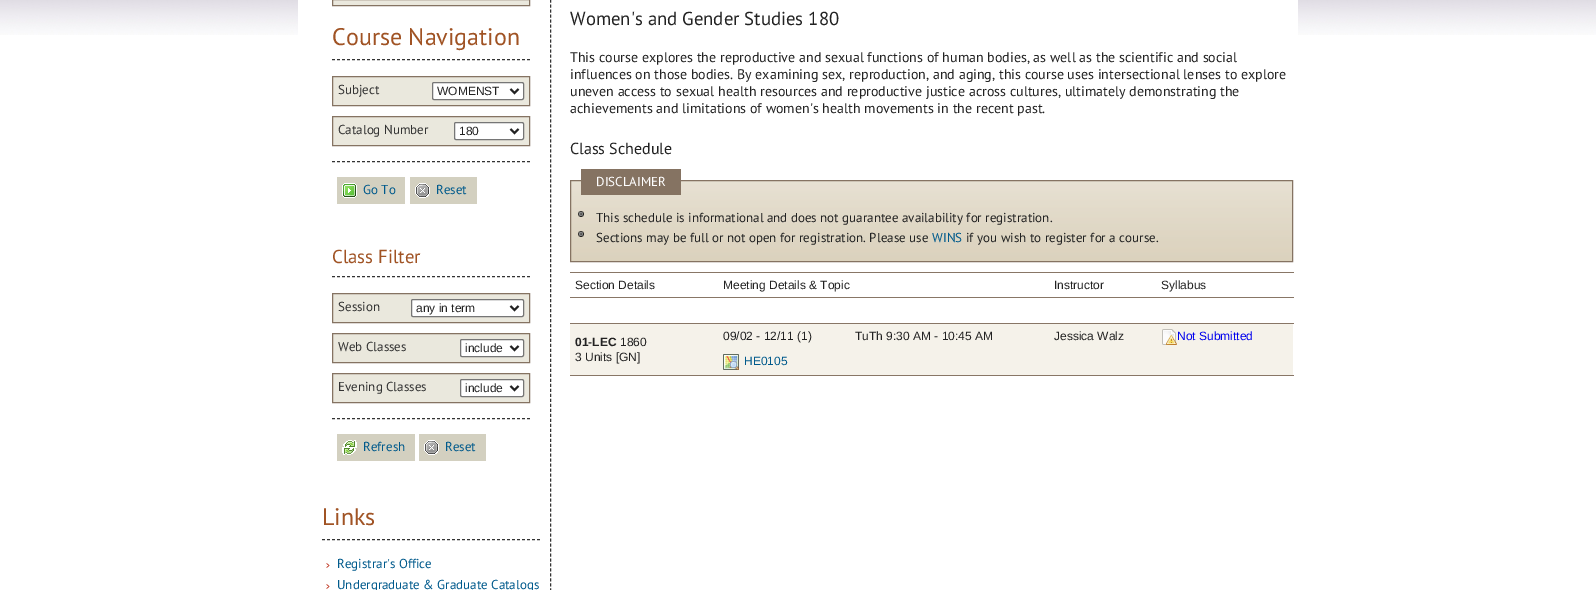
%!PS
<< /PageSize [1596 590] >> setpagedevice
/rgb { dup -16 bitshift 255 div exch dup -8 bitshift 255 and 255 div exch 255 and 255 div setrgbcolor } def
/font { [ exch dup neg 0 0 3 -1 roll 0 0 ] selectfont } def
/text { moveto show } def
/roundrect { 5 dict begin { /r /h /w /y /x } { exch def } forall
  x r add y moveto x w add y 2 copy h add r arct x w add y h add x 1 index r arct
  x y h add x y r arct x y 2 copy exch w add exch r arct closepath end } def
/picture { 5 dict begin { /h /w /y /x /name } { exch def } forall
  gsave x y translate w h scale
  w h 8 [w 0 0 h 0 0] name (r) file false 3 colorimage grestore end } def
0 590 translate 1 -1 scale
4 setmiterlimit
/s1 { /PTSans-Regular 24 font 16#A05324 rgb } def
/s2 { /PTSans-Regular 13 font 16#333333 rgb } def
/s3 { /LiberationSans-Regular 12 font 16#222222 rgb } def
/s4 { /PTSans-Regular 13 font 16#005A8C rgb } def
/s5 { /PTSans-Regular 18.75 font 16#A05324 rgb } def
/s6 { /PTSans-Regular 18.75 font 16#222222 rgb } def
/s7 { /PTSans-Regular 14 font 16#222222 rgb } def
/s8 { /PTSans-Regular 16 font 16#222222 rgb } def
/s9 { /PTSans-Regular 13 font 16#FFFFFF rgb } def
/s10 { /PTSans-Regular 13 font 16#222222 rgb } def
/s11 { /LiberationSans-Regular 12 font 16#0000EE rgb } def
/s12 { /LiberationSans-Bold 12 font 16#222222 rgb } def
/s13 { /LiberationSans-Regular 12 font 16#005A8C rgb } def
16#FFFFFF rgb
0 0 1596 590 rectfill
(pic1.raw) 0 0 1596 35 picture
298 0 1000 35 rectfill
16#333333 rgb
[3 1.99] 0 setdash
550.5 -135 moveto 550.5 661 lineto stroke
16#EAE8DD rgb
332.5 -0.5 moveto 529.5 -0.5 lineto 529.5 5.5 lineto 332.5 5.5 lineto closepath gsave fill grestore
16#857362 rgb
[] 0 setdash
stroke
16#333333 rgb
[3 2] 0 setdash
332 59.5 moveto 530 59.5 lineto stroke
s1
(Course Navigation) 332 45 text
16#EAE8DD rgb
332.5 76.5 moveto 529.5 76.5 lineto 529.5 105.5 lineto 332.5 105.5 lineto closepath gsave fill grestore
16#857362 rgb
[] 0 setdash
stroke
s2
(Subject) 338 94 text
16#FFFFFF rgb
432.5 82.5 91 17 1.5 roundrect gsave fill grestore
16#767676 rgb
stroke
16#222222 rgb
2 setlinewidth
510.5 89 moveto 514.5 93 lineto 518.5 89 lineto stroke
s3
(WOMENST) 437 95 text
16#EAE8DD rgb
332.5 116.5 moveto 529.5 116.5 lineto 529.5 145.5 lineto 332.5 145.5 lineto closepath gsave fill grestore
16#857362 rgb
1 setlinewidth
stroke
s2
(Catalog Number) 338 134 text
16#FFFFFF rgb
454.5 122.5 69 17 1.5 roundrect gsave fill grestore
16#767676 rgb
stroke
16#222222 rgb
2 setlinewidth
510.5 129 moveto 514.5 133 lineto 518.5 129 lineto stroke
s3
(180) 459 135 text
16#333333 rgb
1 setlinewidth
[3 2] 0 setdash
332 161.5 moveto 530 161.5 lineto stroke
16#D3D0C0 rgb
337 177 68 27 rectfill
(pic2.raw) 342 183 15 15 picture
s4
(Go To) 363 194 text
16#D3D0C0 rgb
410 177 67 27 rectfill
(pic3.raw) 415 183 15 15 picture
s4
(Reset) 436 194 text
16#333333 rgb
332 276.5 moveto 530 276.5 lineto stroke
s5
(Class Filter) 332 263 text
16#EAE8DD rgb
332.5 293.5 moveto 529.5 293.5 lineto 529.5 322.5 lineto 332.5 322.5 lineto closepath gsave fill grestore
16#857362 rgb
[] 0 setdash
stroke
s2
(Session) 338 311 text
16#FFFFFF rgb
411.5 299.5 112 17 1.5 roundrect gsave fill grestore
16#767676 rgb
stroke
16#222222 rgb
2 setlinewidth
510.5 306 moveto 514.5 310 lineto 518.5 306 lineto stroke
s3
(any in term) 416 312 text
16#EAE8DD rgb
332.5 333.5 moveto 529.5 333.5 lineto 529.5 362.5 lineto 332.5 362.5 lineto closepath gsave fill grestore
16#857362 rgb
1 setlinewidth
stroke
s2
(Web Classes) 338 351 text
16#FFFFFF rgb
460.5 339.5 63 17 1.5 roundrect gsave fill grestore
16#767676 rgb
stroke
16#222222 rgb
2 setlinewidth
510.5 346 moveto 514.5 350 lineto 518.5 346 lineto stroke
s3
(include) 465 352 text
16#EAE8DD rgb
332.5 373.5 moveto 529.5 373.5 lineto 529.5 402.5 lineto 332.5 402.5 lineto closepath gsave fill grestore
16#857362 rgb
1 setlinewidth
stroke
s2
(Evening Classes) 338 391 text
16#FFFFFF rgb
460.5 379.5 63 17 1.5 roundrect gsave fill grestore
16#767676 rgb
stroke
16#222222 rgb
2 setlinewidth
510.5 386 moveto 514.5 390 lineto 518.5 386 lineto stroke
s3
(include) 465 392 text
16#333333 rgb
1 setlinewidth
[3 2] 0 setdash
332 418.5 moveto 530 418.5 lineto stroke
16#D3D0C0 rgb
337 434 78 27 rectfill
(pic4.raw) 342 440 15 15 picture
s4
(Refresh) 363 451 text
16#D3D0C0 rgb
419 434 67 27 rectfill
(pic3.raw) 424 440 15 15 picture
s4
(Reset) 445 451 text
16#333333 rgb
322 539.5 moveto 540 539.5 lineto stroke
s1
(Links) 322 525 text
(pic5.raw) 326 563 4 5 picture
s4
(Registrar's Office) 337 568 text
(pic5.raw) 326 584 4 5 picture
(Undergraduate & Graduate Catalogs) 337 589 text
s6
(Women's and Gender Studies 180) 570 25 text
s7
(This course explores the reproductive and sexual functions of human bodies, as well as the scientific and social) 570 62 text
(influences on those bodies. By examining sex, reproduction, and aging, this course uses intersectional lenses to explore) 570 79 text
(uneven access to sexual health resources and reproductive justice across cultures, ultimately demonstrating the) 570 96 text
(achievements and limitations of women's health movements in the recent past.) 570 113 text
s8
(Class Schedule) 570 154 text
(pic6.raw) 571 181 721 80 picture
16#857362 rgb
[] 0 setdash
570.5 180.5 722 81 rectstroke
581 169 100 26 rectfill
s9
(DISCLAIMER) 596 186 text
(pic7.raw) 578 211 6 6 picture
s10
(This schedule is informational and does not guarantee availability for registration.) 596 222 text
(pic8.raw) 578 231 6 6 picture
(Sections may be full or not open for registration. Please use) 596 242 text
s4
(WINS) 932 242 text
s10
(if you wish to register for a course.) 966 242 text
16#887666 rgb
570 272 724 1 rectfill
s3
(Section Details) 575 289 text
(Meeting Details & Topic) 723 289 text
(Instructor) 1054 289 text
(Syllabus) 1161 289 text
16#887666 rgb
570 297 724 1 rectfill
570 323 724 1 rectfill
570 375 724 1 rectfill
16#F5F2EA rgb
570 324 723 51 rectfill
s3
(09/02 - 12/11 \(1\)) 723 340 text
(TuTh 9:30 AM - 10:45 AM) 855 340 text
(Jessica Walz) 1054 340 text
(pic9.raw) 1162 329 15 16 picture
s11
(Not Submitted) 1177 340 text
s12
(01-LEC) 575 346 text
s3
(1860) 620 346 text
(3 Units [GN]) 575 361 text
(pic10.raw) 723 354 16 16 picture
s13
(HE0105) 744 365 text
showpage
